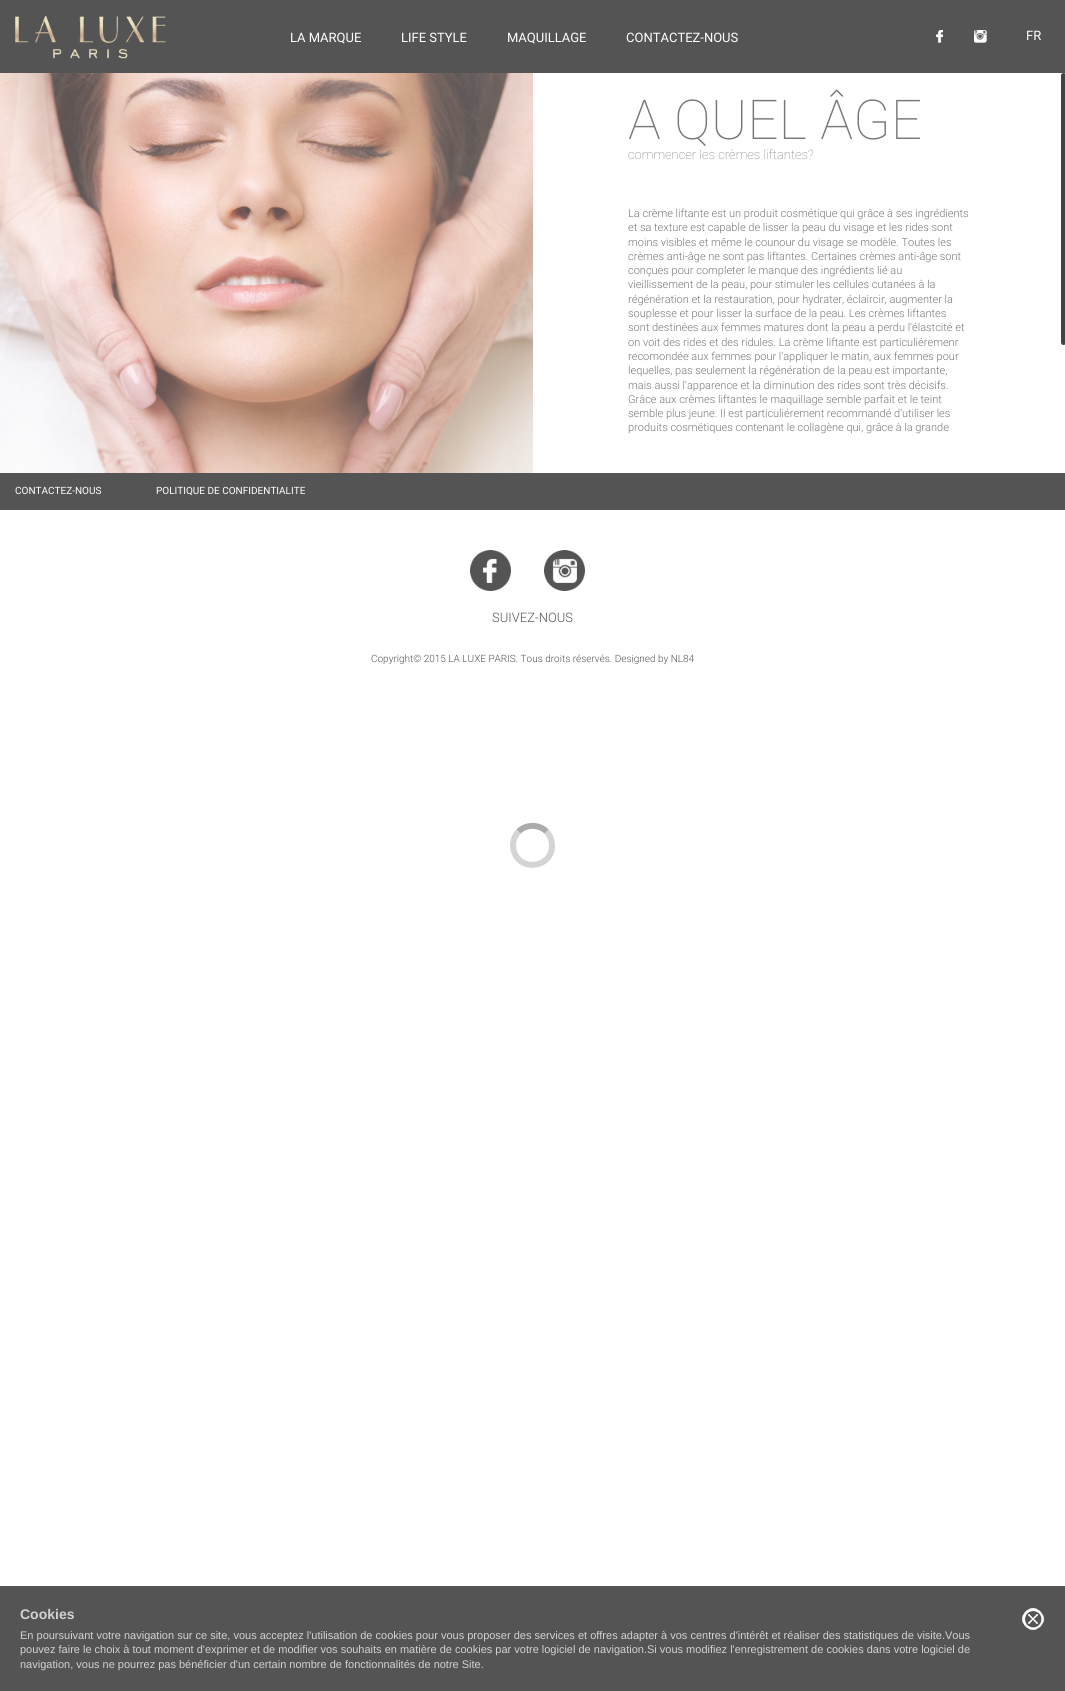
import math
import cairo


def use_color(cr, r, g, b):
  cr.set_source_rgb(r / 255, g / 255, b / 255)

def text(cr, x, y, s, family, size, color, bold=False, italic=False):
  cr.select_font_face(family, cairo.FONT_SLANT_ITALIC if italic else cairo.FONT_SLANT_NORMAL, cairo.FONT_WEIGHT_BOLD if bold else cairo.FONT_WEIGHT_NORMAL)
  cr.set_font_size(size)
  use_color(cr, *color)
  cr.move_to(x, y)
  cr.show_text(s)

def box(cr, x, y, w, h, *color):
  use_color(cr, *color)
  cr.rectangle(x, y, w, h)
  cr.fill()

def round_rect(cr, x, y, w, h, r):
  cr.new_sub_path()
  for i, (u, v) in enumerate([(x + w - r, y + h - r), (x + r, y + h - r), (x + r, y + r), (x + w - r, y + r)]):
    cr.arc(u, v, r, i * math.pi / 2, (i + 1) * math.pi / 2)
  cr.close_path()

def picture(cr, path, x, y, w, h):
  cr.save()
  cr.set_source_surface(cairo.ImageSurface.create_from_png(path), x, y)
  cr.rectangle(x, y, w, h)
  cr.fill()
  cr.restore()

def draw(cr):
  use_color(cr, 255, 255, 255)
  cr.paint()
  box(cr, 0, 0, 1065, 73, 84, 84, 84)
  picture(cr, "img_01.png", 15, 16, 151, 43)
  picture(cr, "img_02.png", 936, 30, 7, 13)
  picture(cr, "img_03.png", 974, 30, 13, 13)
  picture(cr, "img_04.png", 0, 73, 533, 400)
  box(cr, 0, 473, 1065, 37, 84, 84, 84)
  picture(cr, "img_05.png", 470, 550, 41, 41)
  picture(cr, "img_06.png", 544, 550, 41, 41)
  box(cr, 0, 1586, 1065, 105, 84, 84, 84)
  picture(cr, "img_07.png", 1022, 1608, 22, 22)
  use_color(cr, 67, 67, 67)
  round_rect(cr, 1061, 73, 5, 272, 2.5)
  cr.fill()
  cr.new_path()
  cr.move_to(518.5, 831.5)
  cr.curve_to(526, 824, 539, 824, 546.5, 831.5)
  use_color(cr, 171, 171, 171)
  cr.set_line_width(6)
  cr.stroke()
  cr.new_path()
  cr.move_to(546.5, 831.5)
  cr.curve_to(550, 835.5, 552, 840.5, 552, 845.5)
  cr.curve_to(552, 869, 518, 872, 513.5, 849.5)
  cr.curve_to(512, 843, 514, 836.5, 518.5, 831.5)
  cr.set_source_rgba(0.671, 0.671, 0.671, 0.5)
  cr.stroke()
  text(cr, 290, 42, "LA MARQUE", "Roboto", 13, (255, 255, 255))
  text(cr, 401, 42, "LIFE STYLE", "Roboto", 13, (255, 255, 255))
  text(cr, 507, 42, "MAQUILLAGE", "Roboto", 13, (255, 255, 255))
  text(cr, 626, 42, "CONTACTEZ-NOUS", "Roboto", 13, (255, 255, 255))
  text(cr, 1026, 40, "FR", "Roboto", 13, (255, 255, 255))
  text(cr, 628, 139, "A QUEL ÂGE", "Roboto Thin", 55, (120, 120, 120))
  text(cr, 628, 159, "commencer les crèmes liftantes?", "Roboto Thin", 13, (120, 120, 120))
  text(cr, 628, 217, "La crème liftante est un produit cosmétique qui grâce à ses ingrédients", "Roboto Light", 11, (120, 120, 120))
  text(cr, 628, 231, "et sa texture est capable de lisser la peau du visage et les rides sont", "Roboto Light", 11, (120, 120, 120))
  text(cr, 628, 246, "moins visibles et même le counour du visage se modèle. Toutes les", "Roboto Light", 11, (120, 120, 120))
  text(cr, 628, 260, "crèmes anti-âge ne sont pas liftantes. Certaines crèmes anti-âge sont", "Roboto Light", 11, (120, 120, 120))
  text(cr, 628, 274, "conçues pour completer le manque des ingrédients lié au", "Roboto Light", 11, (120, 120, 120))
  text(cr, 628, 288, "vieillissement de la peau, pour stimuler les cellules cutanées à la", "Roboto Light", 11, (120, 120, 120))
  text(cr, 628, 303, "régénération et la restauration, pour hydrater, éclaircir, augmenter la", "Roboto Light", 11, (120, 120, 120))
  text(cr, 628, 317, "souplesse et pour lisser la surface de la peau. Les crèmes liftantes", "Roboto Light", 11, (120, 120, 120))
  text(cr, 628, 331, "sont destinées aux femmes matures dont la peau a perdu l'élastcité et", "Roboto Light", 11, (120, 120, 120))
  text(cr, 628, 346, "on voit des rides et des ridules. La crème liftante est particuliéremenr", "Roboto Light", 11, (120, 120, 120))
  text(cr, 628, 360, "recomondée aux femmes pour l'appliquer le matin, aux femmes pour", "Roboto Light", 11, (120, 120, 120))
  text(cr, 628, 374, "lequelles, pas seulement la régénération de la peau est importante,", "Roboto Light", 11, (120, 120, 120))
  text(cr, 628, 389, "mais aussi l'apparence et la diminution des rides sont très décisifs.", "Roboto Light", 11, (120, 120, 120))
  text(cr, 628, 403, "Grâce aux crèmes liftantes le maquillage semble parfait et le teint", "Roboto Light", 11, (120, 120, 120))
  text(cr, 628, 417, "semble plus jeune. Il est particuliérement recommandé d'utiliser les", "Roboto Light", 11, (120, 120, 120))
  text(cr, 628, 431, "produits cosmétiques contenant le collagène qui, grâce à la grande", "Roboto Light", 11, (120, 120, 120))
  text(cr, 15, 494, "CONTACTEZ-NOUS", "Roboto", 10, (255, 255, 255))
  text(cr, 156, 494, "POLITIQUE DE CONFIDENTIALITE", "Roboto", 10, (255, 255, 255))
  text(cr, 492, 622, "SUIVEZ-NOUS", "Roboto Light", 13, (84, 84, 84))
  text(cr, 371, 662, "Copyright© 2015 LA LUXE PARIS. Tous droits réservés. Designed by NL84", "Roboto Light", 10, (84, 84, 84))
  text(cr, 20, 1619, "Cookies", "Liberation Sans", 14, (210, 210, 210), bold=True)
  text(cr, 20, 1639, "En poursuivant votre navigation sur ce site, vous acceptez l'utilisation de cookies pour vous proposer des services et offres adapter à vos centres d'intérêt et réaliser des statistiques de visite.Vous", "Liberation Sans", 11, (210, 210, 210))
  text(cr, 20, 1653, "pouvez faire le choix à tout moment d'exprimer et de modifier vos souhaits en matière de cookies par votre logiciel de navigation.Si vous modifiez l'enregistrement de cookies dans votre logiciel de", "Liberation Sans", 11, (210, 210, 210))
  text(cr, 20, 1668, "navigation, vous ne pourrez pas bénéficier d'un certain nombre de fonctionnalités de notre Site.", "Liberation Sans", 11, (210, 210, 210))


surface = cairo.ImageSurface(cairo.FORMAT_RGB24, 1065, 1691)
cr = cairo.Context(surface)
options = cairo.FontOptions()
options.set_hint_metrics(cairo.HINT_METRICS_OFF)
options.set_hint_style(cairo.HINT_STYLE_NONE)
cr.set_font_options(options)
cr.set_miter_limit(4)
draw(cr)
surface.write_to_png("out.png")
